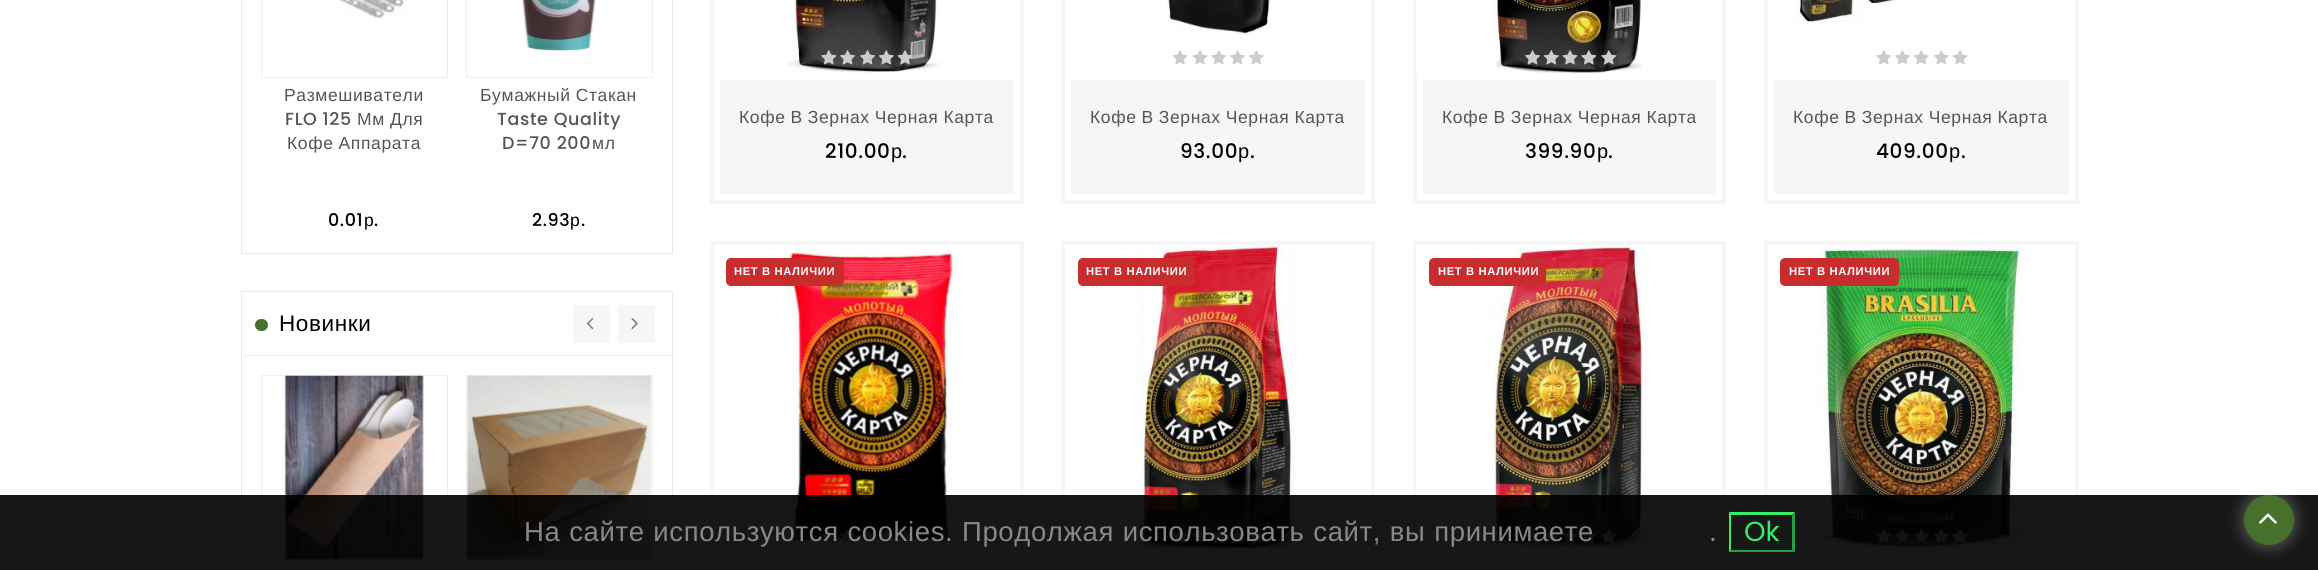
import math
import cairo


def use_color(cr, r, g, b):
  cr.set_source_rgb(r / 255, g / 255, b / 255)

def text(cr, x, y, s, family, size, color, bold=False, italic=False):
  cr.select_font_face(family, cairo.FONT_SLANT_ITALIC if italic else cairo.FONT_SLANT_NORMAL, cairo.FONT_WEIGHT_BOLD if bold else cairo.FONT_WEIGHT_NORMAL)
  cr.set_font_size(size)
  use_color(cr, *color)
  cr.move_to(x, y)
  cr.show_text(s)

def spaced_text(cr, x, y, s, letter, word):
  cr.move_to(x, y)
  for ch in s:
    cr.show_text(ch)
    cr.rel_move_to(letter + word * (ch == ' '), 0)

def box(cr, x, y, w, h, *color):
  use_color(cr, *color)
  cr.rectangle(x, y, w, h)
  cr.fill()

def round_rect(cr, x, y, w, h, r):
  cr.new_sub_path()
  for i, (u, v) in enumerate([(x + w - r, y + h - r), (x + r, y + h - r), (x + r, y + r), (x + w - r, y + r)]):
    cr.arc(u, v, r, i * math.pi / 2, (i + 1) * math.pi / 2)
  cr.close_path()

def shadow(cr, x, y, w, h, r, blur, alpha):
  cr.push_group_with_content(cairo.CONTENT_ALPHA)
  cr.set_operator(cairo.OPERATOR_SOURCE)
  for i in range(15, -16, -2):
    e = blur * i / 6
    if min(w, h) + 2 * e > 0:
      cr.set_source_rgba(0, 0, 0, alpha * math.erfc((i - 1) / 8.5) / 2)
      round_rect(cr, x - e, y - e, w + 2 * e, h + 2 * e, max(0, min(r + e + blur * .6, min(w, h) / 2 + e)))
      cr.fill()
  cr.mask(cr.pop_group())

def picture(cr, path, x, y, w, h):
  cr.save()
  cr.set_source_surface(cairo.ImageSurface.create_from_png(path), x, y)
  cr.rectangle(x, y, w, h)
  cr.fill()
  cr.restore()

def draw(cr):
  use_color(cr, 255, 255, 255)
  cr.paint()
  cr.rectangle(241.5, -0.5, 431, 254)
  use_color(cr, 233, 233, 233)
  cr.set_line_width(1)
  cr.stroke()
  cr.rectangle(261.5, -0.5, 186, 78)
  use_color(cr, 238, 238, 238)
  cr.stroke()
  picture(cr, "img_01.png", 339, 0, 71, 19)
  cr.rectangle(466.5, -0.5, 186, 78)
  cr.stroke()
  picture(cr, "img_02.png", 522, 0, 74, 51)
  cr.rectangle(241.5, 291.5, 431, 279)
  use_color(cr, 233, 233, 233)
  cr.stroke()
  box(cr, 573, 305, 37, 38, 246, 246, 246)
  picture(cr, "img_03.png", 586, 318, 8, 12)
  box(cr, 618, 305, 37, 38, 246, 246, 246)
  picture(cr, "img_04.png", 631, 318, 7, 12)
  cr.rectangle(261.5, 375.5, 186, 185)
  use_color(cr, 238, 238, 238)
  cr.stroke()
  picture(cr, "img_05.png", 263, 375, 182, 185)
  cr.rectangle(466.5, 375.5, 186, 185)
  cr.stroke()
  picture(cr, "img_06.png", 467, 375, 185, 185)
  box(cr, 243, 355, 428, 1, 238, 238, 238)
  use_color(cr, 70, 112, 44)
  round_rect(cr, 255, 319, 13, 12, 6)
  cr.fill()
  cr.rectangle(712, -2, 310, 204)
  use_color(cr, 246, 246, 246)
  cr.set_line_width(4)
  cr.stroke()
  picture(cr, "img_07.png", 786, 0, 157, 73)
  picture(cr, "img_08.png", 821, 50, 16, 15)
  picture(cr, "img_09.png", 840, 50, 15, 15)
  picture(cr, "img_10.png", 860, 50, 15, 15)
  picture(cr, "img_11.png", 878, 50, 16, 15)
  picture(cr, "img_12.png", 897, 50, 16, 15)
  box(cr, 720, 80, 294, 114, 246, 246, 246)
  cr.rectangle(1063, -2, 310, 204)
  cr.stroke()
  picture(cr, "img_13.png", 1166, 0, 104, 35)
  picture(cr, "img_14.png", 1172, 50, 16, 15)
  picture(cr, "img_14.png", 1192, 50, 16, 15)
  picture(cr, "img_15.png", 1211, 50, 16, 15)
  picture(cr, "img_16.png", 1230, 50, 15, 15)
  picture(cr, "img_17.png", 1248, 50, 16, 15)
  box(cr, 1071, 80, 294, 114, 246, 246, 246)
  cr.rectangle(1415, -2, 309, 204)
  cr.stroke()
  picture(cr, "img_18.png", 1416, 0, 226, 73)
  picture(cr, "img_19.png", 1525, 50, 15, 15)
  picture(cr, "img_20.png", 1543, 50, 16, 15)
  picture(cr, "img_21.png", 1562, 50, 16, 15)
  picture(cr, "img_22.png", 1581, 50, 16, 15)
  picture(cr, "img_23.png", 1601, 50, 16, 15)
  box(cr, 1423, 80, 293, 114, 246, 246, 246)
  cr.rectangle(1766, -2, 311, 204)
  cr.stroke()
  picture(cr, "img_24.png", 1794, 0, 106, 24)
  picture(cr, "img_15.png", 1876, 50, 16, 15)
  picture(cr, "img_16.png", 1895, 50, 15, 15)
  picture(cr, "img_17.png", 1913, 50, 16, 15)
  picture(cr, "img_17.png", 1933, 50, 16, 15)
  picture(cr, "img_14.png", 1952, 50, 16, 15)
  box(cr, 1774, 80, 295, 114, 246, 246, 246)
  cr.rectangle(712, 243, 310, 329)
  cr.stroke()
  picture(cr, "img_25.png", 787, 249, 167, 293)
  use_color(cr, 201, 44, 44)
  round_rect(cr, 726, 258, 118, 28, 5)
  cr.fill()
  picture(cr, "img_26.png", 821, 528, 16, 16)
  picture(cr, "img_27.png", 840, 528, 15, 16)
  picture(cr, "img_28.png", 860, 528, 15, 16)
  picture(cr, "img_29.png", 878, 528, 16, 16)
  picture(cr, "img_30.png", 897, 528, 16, 16)
  box(cr, 720, 558, 294, 12, 246, 246, 246)
  cr.rectangle(1063, 243, 310, 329)
  cr.stroke()
  picture(cr, "img_31.png", 1139, 245, 157, 305)
  use_color(cr, 201, 44, 44)
  round_rect(cr, 1078, 258, 117, 28, 5)
  cr.fill()
  picture(cr, "img_32.png", 1172, 528, 16, 16)
  picture(cr, "img_33.png", 1192, 528, 16, 16)
  picture(cr, "img_34.png", 1211, 528, 16, 16)
  picture(cr, "img_35.png", 1230, 528, 15, 16)
  picture(cr, "img_36.png", 1248, 528, 16, 16)
  box(cr, 1071, 558, 294, 12, 246, 246, 246)
  cr.rectangle(1415, 243, 309, 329)
  cr.stroke()
  picture(cr, "img_37.png", 1416, 245, 236, 305)
  use_color(cr, 201, 44, 44)
  round_rect(cr, 1429, 258, 117, 28, 5)
  cr.fill()
  picture(cr, "img_38.png", 1525, 528, 15, 15)
  picture(cr, "img_39.png", 1543, 528, 16, 16)
  picture(cr, "img_40.png", 1562, 528, 16, 16)
  picture(cr, "img_41.png", 1581, 528, 16, 16)
  picture(cr, "img_42.png", 1601, 528, 16, 16)
  box(cr, 1423, 558, 293, 12, 246, 246, 246)
  cr.rectangle(1766, 243, 311, 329)
  cr.stroke()
  picture(cr, "img_43.png", 1819, 245, 205, 303)
  use_color(cr, 201, 44, 44)
  round_rect(cr, 1780, 258, 119, 28, 5)
  cr.fill()
  picture(cr, "img_44.png", 1876, 528, 16, 16)
  picture(cr, "img_45.png", 1895, 528, 15, 16)
  picture(cr, "img_46.png", 1913, 528, 16, 16)
  picture(cr, "img_47.png", 1933, 528, 16, 16)
  picture(cr, "img_48.png", 1952, 528, 16, 16)
  box(cr, 1774, 558, 295, 12, 246, 246, 246)
  cr.set_source_rgba(0, 0, 0, 0.7)
  cr.rectangle(0, 495, 2318, 75)
  cr.fill()
  cr.rectangle(0, 495, 2318, 75)
  cr.fill()
  use_color(cr, 53, 240, 103)
  cr.new_path()
  cr.move_to(1729, 512)
  cr.line_to(1795, 512)
  cr.line_to(1792, 515)
  cr.line_to(1731, 515)
  cr.close_path()
  cr.fill()
  use_color(cr, 35, 160, 69)
  cr.new_path()
  cr.move_to(1795, 512)
  cr.line_to(1795, 552)
  cr.line_to(1792, 550)
  cr.line_to(1792, 515)
  cr.close_path()
  cr.fill()
  cr.new_path()
  cr.move_to(1795, 552)
  cr.line_to(1729, 552)
  cr.line_to(1731, 550)
  cr.line_to(1792, 550)
  cr.close_path()
  cr.fill()
  use_color(cr, 53, 240, 103)
  cr.new_path()
  cr.move_to(1729, 552)
  cr.line_to(1729, 512)
  cr.line_to(1731, 515)
  cr.line_to(1731, 550)
  cr.close_path()
  cr.fill()
  use_color(cr, 255, 255, 255)
  shadow(cr, 2239, 490, 60, 60, 30, 6, 0.2)
  use_color(cr, 70, 112, 44)
  cr.arc(2269, 520, 25, 0, 2 * math.pi)
  cr.fill()
  picture(cr, "img_49.png", 2258, 513, 19, 11)
  cr.select_font_face("Liberation Sans")
  cr.set_font_size(17.5)
  use_color(cr, 85, 85, 85)
  spaced_text(cr, 284, 101, "Размешиватели", 0.62, 0)
  cr.select_font_face("Poppins Medium")
  spaced_text(cr, 285, 125, "FLO 125", 0.62, 0)
  cr.select_font_face("Liberation Sans")
  spaced_text(cr, 357, 125, "Мм", 0.62, 0)
  spaced_text(cr, 390, 125, "Для", 0.62, 0)
  spaced_text(cr, 287, 149, "Кофе Аппарата", 0.62, -0.5)
  cr.select_font_face("Poppins Medium")
  use_color(cr, 0, 0, 0)
  spaced_text(cr, 328, 226, "0.01", 0.62, 0)
  cr.select_font_face("Liberation Sans")
  spaced_text(cr, 364, 226, "р", 0.62, 0)
  cr.select_font_face("Poppins Medium")
  spaced_text(cr, 374, 226, ".", 0.62, 0)
  cr.select_font_face("Liberation Sans")
  use_color(cr, 85, 85, 85)
  spaced_text(cr, 480, 101, "Бумажный Стакан", 0.62, -0.5)
  cr.select_font_face("Poppins Medium")
  spaced_text(cr, 497, 125, "Taste Quality", 0.62, 0)
  spaced_text(cr, 502, 149, "D=70 200", 0.62, 0)
  cr.select_font_face("Liberation Sans")
  spaced_text(cr, 592, 149, "мл", 0.62, 0)
  cr.select_font_face("Poppins Medium")
  use_color(cr, 0, 0, 0)
  spaced_text(cr, 532, 226, "2.93", 0.62, 0)
  cr.select_font_face("Liberation Sans")
  spaced_text(cr, 570, 226, "р", 0.62, 0)
  cr.select_font_face("Poppins Medium")
  spaced_text(cr, 581, 226, ".", 0.62, 0)
  cr.select_font_face("Liberation Sans")
  cr.set_font_size(22.5)
  spaced_text(cr, 279, 331, "Новинки", 0.62, 0)
  cr.set_font_size(17.5)
  use_color(cr, 85, 85, 85)
  spaced_text(cr, 739, 123, "Кофе В Зернах Черная Карта", 0.62, -0.5)
  cr.select_font_face("Poppins Medium")
  cr.set_font_size(20)
  use_color(cr, 0, 0, 0)
  spaced_text(cr, 825, 158, "210.00", 0.62, 0)
  cr.select_font_face("Liberation Sans")
  spaced_text(cr, 891, 158, "р", 0.62, 0)
  cr.select_font_face("Poppins Medium")
  spaced_text(cr, 902, 158, ".", 0.62, 0)
  cr.select_font_face("Liberation Sans")
  cr.set_font_size(17.5)
  use_color(cr, 85, 85, 85)
  spaced_text(cr, 1090, 123, "Кофе В Зернах Черная Карта", 0.62, -0.5)
  cr.select_font_face("Poppins Medium")
  cr.set_font_size(20)
  use_color(cr, 0, 0, 0)
  spaced_text(cr, 1180, 158, "93.00", 0.62, 0)
  cr.select_font_face("Liberation Sans")
  spaced_text(cr, 1238, 158, "р", 0.62, 0)
  cr.select_font_face("Poppins Medium")
  spaced_text(cr, 1250, 158, ".", 0.62, 0)
  cr.select_font_face("Liberation Sans")
  cr.set_font_size(17.5)
  use_color(cr, 85, 85, 85)
  spaced_text(cr, 1442, 123, "Кофе В Зернах Черная Карта", 0.62, -0.5)
  cr.select_font_face("Poppins Medium")
  cr.set_font_size(20)
  use_color(cr, 0, 0, 0)
  spaced_text(cr, 1525, 158, "399.90", 0.62, 0)
  cr.select_font_face("Liberation Sans")
  spaced_text(cr, 1597, 158, "р", 0.62, 0)
  cr.select_font_face("Poppins Medium")
  spaced_text(cr, 1608, 158, ".", 0.62, 0)
  cr.select_font_face("Liberation Sans")
  cr.set_font_size(17.5)
  use_color(cr, 85, 85, 85)
  spaced_text(cr, 1793, 123, "Кофе В Зернах Черная Карта", 0.62, -0.5)
  cr.select_font_face("Poppins Medium")
  cr.set_font_size(20)
  use_color(cr, 0, 0, 0)
  spaced_text(cr, 1876, 158, "409.00", 0.62, 0)
  cr.select_font_face("Liberation Sans")
  spaced_text(cr, 1949, 158, "р", 0.62, 0)
  cr.select_font_face("Poppins Medium")
  spaced_text(cr, 1961, 158, ".", 0.62, 0)
  cr.select_font_face("Liberation Sans", cairo.FONT_SLANT_NORMAL, cairo.FONT_WEIGHT_BOLD)
  cr.set_font_size(11.25)
  use_color(cr, 255, 255, 255)
  spaced_text(cr, 734, 275, "НЕТ В НАЛИЧИИ", 0.62, 0)
  spaced_text(cr, 1086, 275, "НЕТ В НАЛИЧИИ", 0.62, 0)
  spaced_text(cr, 1438, 275, "НЕТ В НАЛИЧИИ", 0.62, 0)
  spaced_text(cr, 1789, 275, "НЕТ В НАЛИЧИИ", 0.62, 0)
  cr.select_font_face("Liberation Sans")
  cr.set_font_size(27.5)
  use_color(cr, 136, 136, 136)
  spaced_text(cr, 524, 541, "На сайте используются cookies. Продолжая использовать сайт, вы принимаете", 0.62, 0.5)
  cr.select_font_face("Poppins")
  spaced_text(cr, 1710, 541, ".", 0.62, 0)
  text(cr, 1744, 541, "Ok", "Poppins", 27.5, (53, 240, 103))


surface = cairo.ImageSurface(cairo.FORMAT_RGB24, 2318, 570)
cr = cairo.Context(surface)
options = cairo.FontOptions()
options.set_hint_metrics(cairo.HINT_METRICS_OFF)
options.set_hint_style(cairo.HINT_STYLE_NONE)
cr.set_font_options(options)
cr.set_miter_limit(4)
draw(cr)
surface.write_to_png("out.png")
